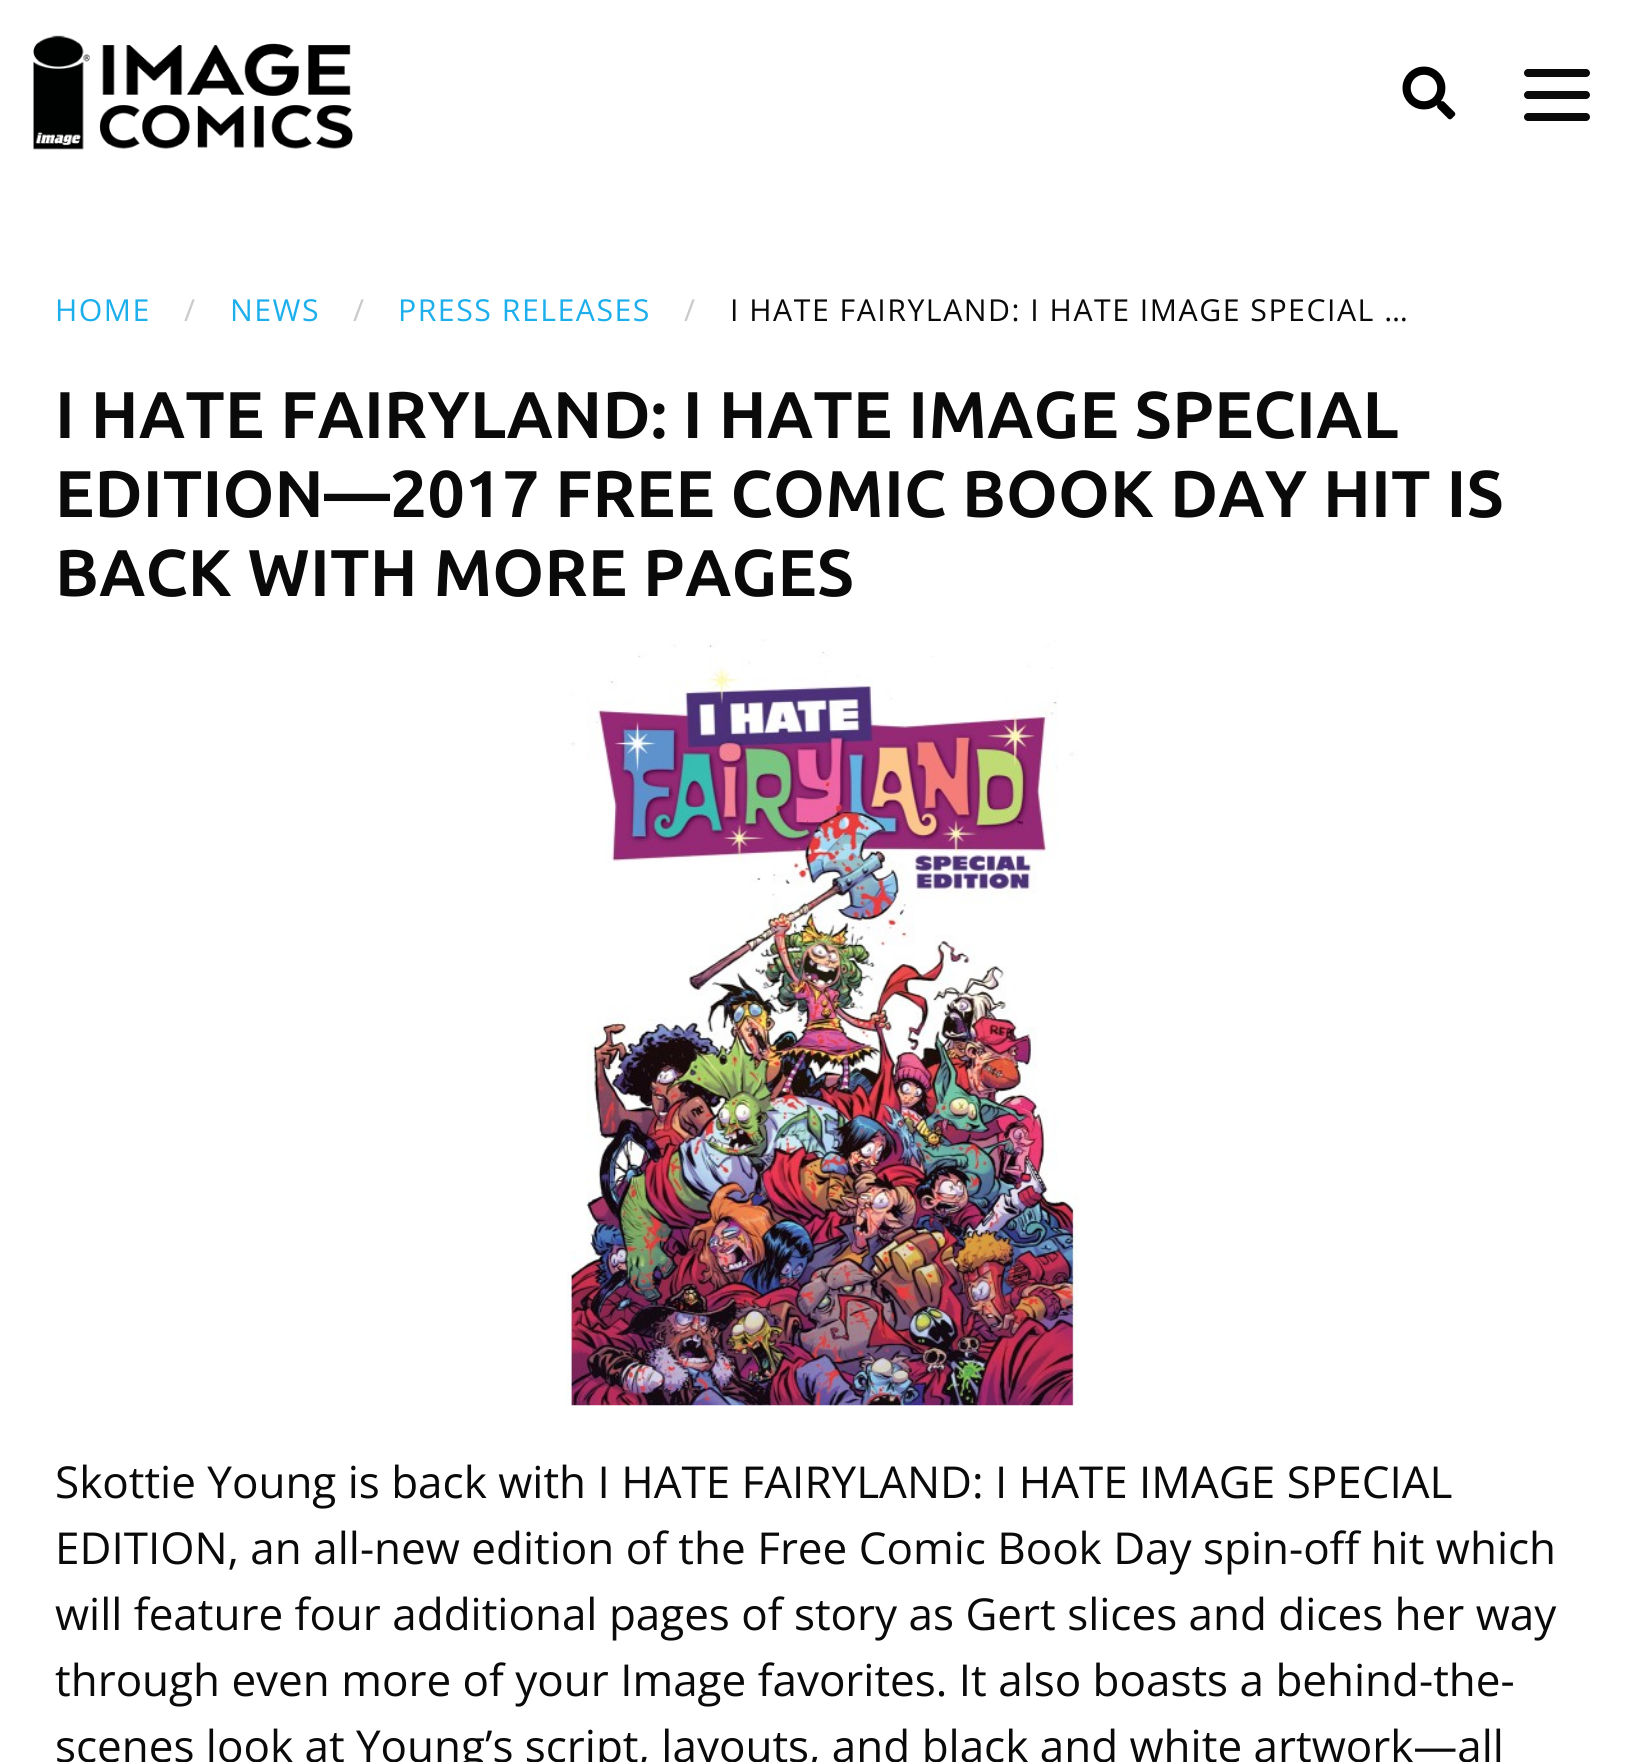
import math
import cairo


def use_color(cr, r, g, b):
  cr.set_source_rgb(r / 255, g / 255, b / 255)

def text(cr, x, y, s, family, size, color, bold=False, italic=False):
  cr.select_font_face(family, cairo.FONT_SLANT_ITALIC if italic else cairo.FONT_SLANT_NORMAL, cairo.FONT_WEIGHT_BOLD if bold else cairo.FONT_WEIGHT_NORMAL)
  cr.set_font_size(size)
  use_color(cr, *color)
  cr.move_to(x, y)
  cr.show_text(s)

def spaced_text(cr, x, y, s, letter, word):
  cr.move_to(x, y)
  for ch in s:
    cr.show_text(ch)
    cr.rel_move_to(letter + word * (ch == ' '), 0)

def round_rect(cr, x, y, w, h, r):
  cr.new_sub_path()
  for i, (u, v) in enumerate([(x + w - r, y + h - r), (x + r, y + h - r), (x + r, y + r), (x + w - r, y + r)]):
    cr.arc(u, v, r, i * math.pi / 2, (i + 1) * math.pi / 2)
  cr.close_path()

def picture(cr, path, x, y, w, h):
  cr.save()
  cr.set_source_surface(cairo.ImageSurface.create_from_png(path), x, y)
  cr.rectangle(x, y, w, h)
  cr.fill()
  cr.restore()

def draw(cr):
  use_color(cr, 255, 255, 255)
  cr.paint()
  picture(cr, "img_01.png", 33, 35, 320, 115)
  picture(cr, "img_02.png", 1402, 66, 54, 54)
  use_color(cr, 10, 10, 10)
  round_rect(cr, 1524, 69, 66, 8, 4)
  cr.fill()
  round_rect(cr, 1524, 91, 66, 8, 4)
  cr.fill()
  round_rect(cr, 1524, 113, 66, 8, 4)
  cr.fill()
  picture(cr, "img_03.png", 566, 639, 513, 767)
  cr.select_font_face("Open Sans")
  cr.set_font_size(30.25)
  use_color(cr, 29, 175, 236)
  spaced_text(cr, 55, 321, "HOME", 1.5, 0)
  use_color(cr, 202, 202, 202)
  spaced_text(cr, 184, 321, "/", 1.5, 0)
  use_color(cr, 29, 175, 236)
  spaced_text(cr, 230, 321, "NEWS", 1.5, 0)
  use_color(cr, 202, 202, 202)
  spaced_text(cr, 353, 321, "/", 1.5, 0)
  use_color(cr, 29, 175, 236)
  spaced_text(cr, 398, 321, "PRESS RELEASES", 1.5, 0)
  use_color(cr, 202, 202, 202)
  spaced_text(cr, 684, 321, "/", 1.5, 0)
  use_color(cr, 10, 10, 10)
  spaced_text(cr, 730, 321, "I HATE FAIRYLAND: I HATE IMAGE SPECIAL …", 1.5, 0)
  cr.select_font_face("Ubuntu", cairo.FONT_SLANT_NORMAL, cairo.FONT_WEIGHT_BOLD)
  cr.set_font_size(66)
  spaced_text(cr, 55, 438, "I HATE FAIRYLAND: I HATE IMAGE SPECIAL", 0.15, 0)
  spaced_text(cr, 55, 517, "EDITION—2017 FREE COMIC BOOK DAY HIT IS", 0.15, 0)
  spaced_text(cr, 55, 596, "BACK WITH MORE PAGES", 0.15, 0)
  text(cr, 55, 1498, "Skottie Young is back with I HATE FAIRYLAND: I HATE IMAGE SPECIAL", "Open Sans", 44, (10, 10, 10))
  text(cr, 55, 1564, "EDITION, an all-new edition of the Free Comic Book Day spin-off hit which", "Open Sans", 44, (10, 10, 10))
  text(cr, 55, 1630, "will feature four additional pages of story as Gert slices and dices her way", "Open Sans", 44, (10, 10, 10))
  text(cr, 55, 1696, "through even more of your Image favorites. It also boasts a behind-the-", "Open Sans", 44, (10, 10, 10))
  text(cr, 55, 1762, "scenes look at Young’s script, layouts, and black and white artwork—all", "Open Sans", 44, (10, 10, 10))


surface = cairo.ImageSurface(cairo.FORMAT_RGB24, 1642, 1762)
cr = cairo.Context(surface)
options = cairo.FontOptions()
options.set_hint_metrics(cairo.HINT_METRICS_OFF)
options.set_hint_style(cairo.HINT_STYLE_NONE)
cr.set_font_options(options)
cr.set_miter_limit(4)
draw(cr)
surface.write_to_png("out.png")
